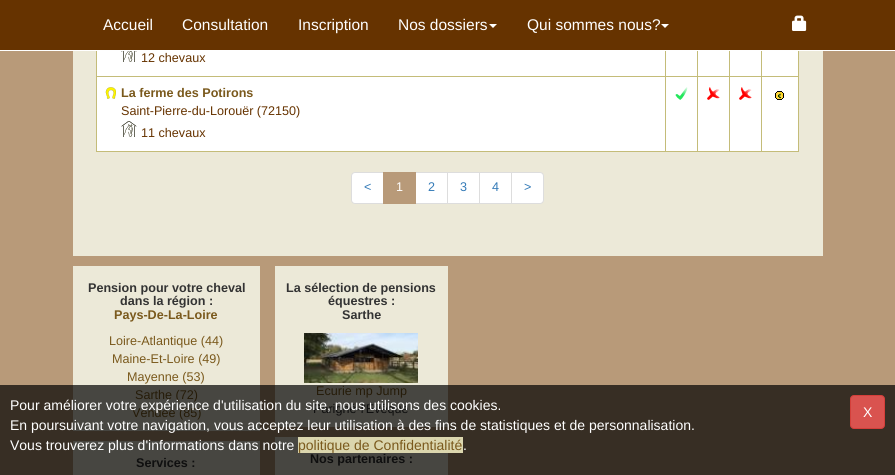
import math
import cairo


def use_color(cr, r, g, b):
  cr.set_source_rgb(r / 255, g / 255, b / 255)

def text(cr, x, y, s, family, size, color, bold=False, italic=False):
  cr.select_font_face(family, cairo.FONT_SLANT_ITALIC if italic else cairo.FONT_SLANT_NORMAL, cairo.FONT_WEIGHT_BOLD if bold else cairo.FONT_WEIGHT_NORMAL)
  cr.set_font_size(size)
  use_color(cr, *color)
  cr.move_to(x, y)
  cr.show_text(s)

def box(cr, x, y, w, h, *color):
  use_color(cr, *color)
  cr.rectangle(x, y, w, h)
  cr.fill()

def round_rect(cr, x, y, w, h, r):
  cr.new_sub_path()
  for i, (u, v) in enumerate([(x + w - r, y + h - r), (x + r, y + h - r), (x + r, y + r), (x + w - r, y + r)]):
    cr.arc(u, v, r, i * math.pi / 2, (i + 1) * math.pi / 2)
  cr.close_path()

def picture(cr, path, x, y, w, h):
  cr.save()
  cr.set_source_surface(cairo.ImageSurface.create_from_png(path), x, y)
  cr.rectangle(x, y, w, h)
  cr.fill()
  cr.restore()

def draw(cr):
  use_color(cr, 184, 154, 121)
  cr.paint()
  box(cr, 0, 385, 895, 90, 55, 46, 36)
  box(cr, 0, 0, 895, 50, 102, 51, 0)
  box(cr, 0, 50, 895, 1, 255, 255, 255)
  cr.new_path()
  cr.move_to(489, 24)
  cr.line_to(497, 24)
  cr.line_to(493, 28)
  cr.close_path()
  cr.fill()
  cr.new_path()
  cr.move_to(661, 24)
  cr.line_to(669, 24)
  cr.line_to(665, 28)
  cr.close_path()
  cr.fill()
  picture(cr, "img_01.png", 792, 15, 15, 16)
  box(cr, 73, 51, 750, 205, 236, 233, 216)
  box(cr, 97, 51, 701, 100, 255, 255, 255)
  box(cr, 798, 51, 1, 101, 196, 188, 121)
  box(cr, 96, 151, 703, 1, 196, 188, 121)
  box(cr, 96, 51, 1, 101, 196, 188, 121)
  picture(cr, "img_02.png", 121, 51, 16, 11)
  box(cr, 96, 76, 703, 1, 196, 188, 121)
  picture(cr, "img_03.png", 105, 87, 11, 12)
  picture(cr, "img_04.png", 121, 121, 16, 16)
  box(cr, 665, 51, 1, 101, 196, 188, 121)
  picture(cr, "img_05.png", 675, 87, 13, 13)
  box(cr, 697, 51, 1, 101, 196, 188, 121)
  picture(cr, "img_06.png", 707, 87, 13, 13)
  box(cr, 729, 51, 1, 101, 196, 188, 121)
  picture(cr, "img_06.png", 739, 87, 13, 13)
  box(cr, 761, 51, 1, 101, 196, 188, 121)
  picture(cr, "img_07.png", 775, 91, 9, 9)
  use_color(cr, 255, 255, 255)
  cr.new_path()
  cr.move_to(355, 172.5)
  cr.line_to(383.5, 172.5)
  cr.line_to(383.5, 203.5)
  cr.line_to(355, 203.5)
  cr.curve_to(353, 203.5, 351.5, 202, 351.5, 200)
  cr.line_to(351.5, 176)
  cr.curve_to(351.5, 174, 353, 172.5, 355, 172.5)
  cr.close_path()
  cr.fill_preserve()
  use_color(cr, 221, 221, 221)
  cr.set_line_width(1)
  cr.stroke()
  use_color(cr, 255, 255, 255)
  cr.rectangle(415.5, 172.5, 32, 31)
  cr.fill_preserve()
  use_color(cr, 221, 221, 221)
  cr.stroke()
  box(cr, 383, 172, 33, 32, 184, 154, 121)
  use_color(cr, 255, 255, 255)
  cr.rectangle(447.5, 172.5, 32, 31)
  cr.fill_preserve()
  use_color(cr, 221, 221, 221)
  cr.stroke()
  use_color(cr, 255, 255, 255)
  cr.rectangle(479.5, 172.5, 32, 31)
  cr.fill_preserve()
  use_color(cr, 221, 221, 221)
  cr.stroke()
  use_color(cr, 255, 255, 255)
  cr.new_path()
  cr.move_to(511.5, 172.5)
  cr.line_to(540, 172.5)
  cr.curve_to(542, 172.5, 543.5, 174, 543.5, 176)
  cr.line_to(543.5, 200)
  cr.curve_to(543.5, 202, 542, 203.5, 540, 203.5)
  cr.line_to(511.5, 203.5)
  cr.close_path()
  cr.fill_preserve()
  use_color(cr, 221, 221, 221)
  cr.stroke()
  box(cr, 73, 266, 187, 119, 236, 233, 216)
  box(cr, 73, 385, 187, 46, 71, 70, 65)
  box(cr, 73, 441, 187, 34, 71, 70, 65)
  box(cr, 275, 266, 173, 119, 236, 233, 216)
  box(cr, 275, 385, 173, 42, 71, 70, 65)
  picture(cr, "img_08.png", 304, 333, 114, 50)
  box(cr, 275, 437, 173, 38, 71, 70, 65)
  box(cr, 298, 437, 165, 16, 219, 214, 174)
  use_color(cr, 217, 83, 79)
  round_rect(cr, 850.5, 395.5, 34, 33, 3.5)
  cr.fill_preserve()
  use_color(cr, 212, 63, 58)
  cr.stroke()
  text(cr, 103, 30, "Accueil", "Liberation Sans", 15.5, (255, 255, 255))
  text(cr, 182, 30, "Consultation", "Liberation Sans", 15.5, (255, 255, 255))
  text(cr, 298, 30, "Inscription", "Liberation Sans", 15.5, (255, 255, 255))
  text(cr, 398, 30, "Nos dossiers", "Liberation Sans", 15.5, (255, 255, 255))
  text(cr, 527, 30, "Qui sommes nous?", "Liberation Sans", 15.5, (255, 255, 255))
  text(cr, 141, 62, "12 chevaux", "Liberation Sans", 12.6, (102, 51, 0))
  text(cr, 121, 97, "La ferme des Potirons", "Liberation Sans", 12.6, (122, 89, 28), bold=True)
  text(cr, 121, 115, "Saint-Pierre-du-Lorouër (72150)", "Liberation Sans", 12.6, (102, 51, 0))
  text(cr, 141, 137, "11 chevaux", "Liberation Sans", 12.6, (102, 51, 0))
  text(cr, 364, 191, "<", "Liberation Sans", 12.6, (51, 122, 183))
  text(cr, 396, 191, "1", "Liberation Sans", 12.6, (255, 255, 255))
  text(cr, 428, 191, "2", "Liberation Sans", 12.6, (51, 122, 183))
  text(cr, 460, 191, "3", "Liberation Sans", 12.6, (51, 122, 183))
  text(cr, 492, 191, "4", "Liberation Sans", 12.6, (51, 122, 183))
  text(cr, 524, 191, ">", "Liberation Sans", 12.6, (51, 122, 183))
  text(cr, 88, 292, "Pension pour votre cheval", "Liberation Sans", 12.6, (51, 51, 51), bold=True)
  text(cr, 120, 305, "dans la région :", "Liberation Sans", 12.6, (51, 51, 51), bold=True)
  text(cr, 114, 319, "Pays-De-La-Loire", "Liberation Sans", 12.6, (122, 89, 28), bold=True)
  text(cr, 109, 345, "Loire-Atlantique (44)", "Liberation Sans", 12.6, (122, 89, 28))
  text(cr, 112, 363, "Maine-Et-Loire (49)", "Liberation Sans", 12.6, (122, 89, 28))
  text(cr, 127, 381, "Mayenne (53)", "Liberation Sans", 12.6, (122, 89, 28))
  text(cr, 135, 399, "Sarthe (72)", "Liberation Sans", 12.6, (37, 27, 8))
  text(cr, 132, 417, "Vendee (85)", "Liberation Sans", 12.6, (37, 27, 8))
  text(cr, 136, 467, "Services :", "Liberation Sans", 12.6, (15, 15, 15), bold=True)
  text(cr, 286, 292, "La sélection de pensions", "Liberation Sans", 12.6, (51, 51, 51), bold=True)
  text(cr, 328, 305, "équestres :", "Liberation Sans", 12.6, (51, 51, 51), bold=True)
  text(cr, 342, 319, "Sarthe", "Liberation Sans", 12.6, (51, 51, 51), bold=True)
  text(cr, 316, 395, "Ecurie mp Jump", "Liberation Sans", 12.6, (37, 27, 8))
  text(cr, 313, 413, "Parigné-l'Évêque", "Liberation Sans", 12.6, (15, 15, 15))
  text(cr, 310, 463, "Nos partenaires :", "Liberation Sans", 12.6, (15, 15, 15), bold=True)
  text(cr, 10, 410, "Pour améliorer votre expérience d'utilisation du site, nous utilisons des cookies.", "Liberation Sans", 14, (255, 255, 255))
  text(cr, 10, 430, "En poursuivant votre navigation, vous acceptez leur utilisation à des fins de statistiques et de personnalisation.", "Liberation Sans", 14, (255, 255, 255))
  text(cr, 10, 450, "Vous trouverez plus d'informations dans notre", "Liberation Sans", 14, (255, 255, 255))
  text(cr, 298, 450, "politique de Confidentialité", "Liberation Sans", 14, (122, 89, 28))
  text(cr, 463, 450, ".", "Liberation Sans", 14, (255, 255, 255))
  text(cr, 863, 417, "X", "Liberation Sans", 14, (255, 255, 255))


surface = cairo.ImageSurface(cairo.FORMAT_RGB24, 895, 475)
cr = cairo.Context(surface)
options = cairo.FontOptions()
options.set_hint_metrics(cairo.HINT_METRICS_OFF)
options.set_hint_style(cairo.HINT_STYLE_NONE)
cr.set_font_options(options)
cr.set_miter_limit(4)
draw(cr)
surface.write_to_png("out.png")
